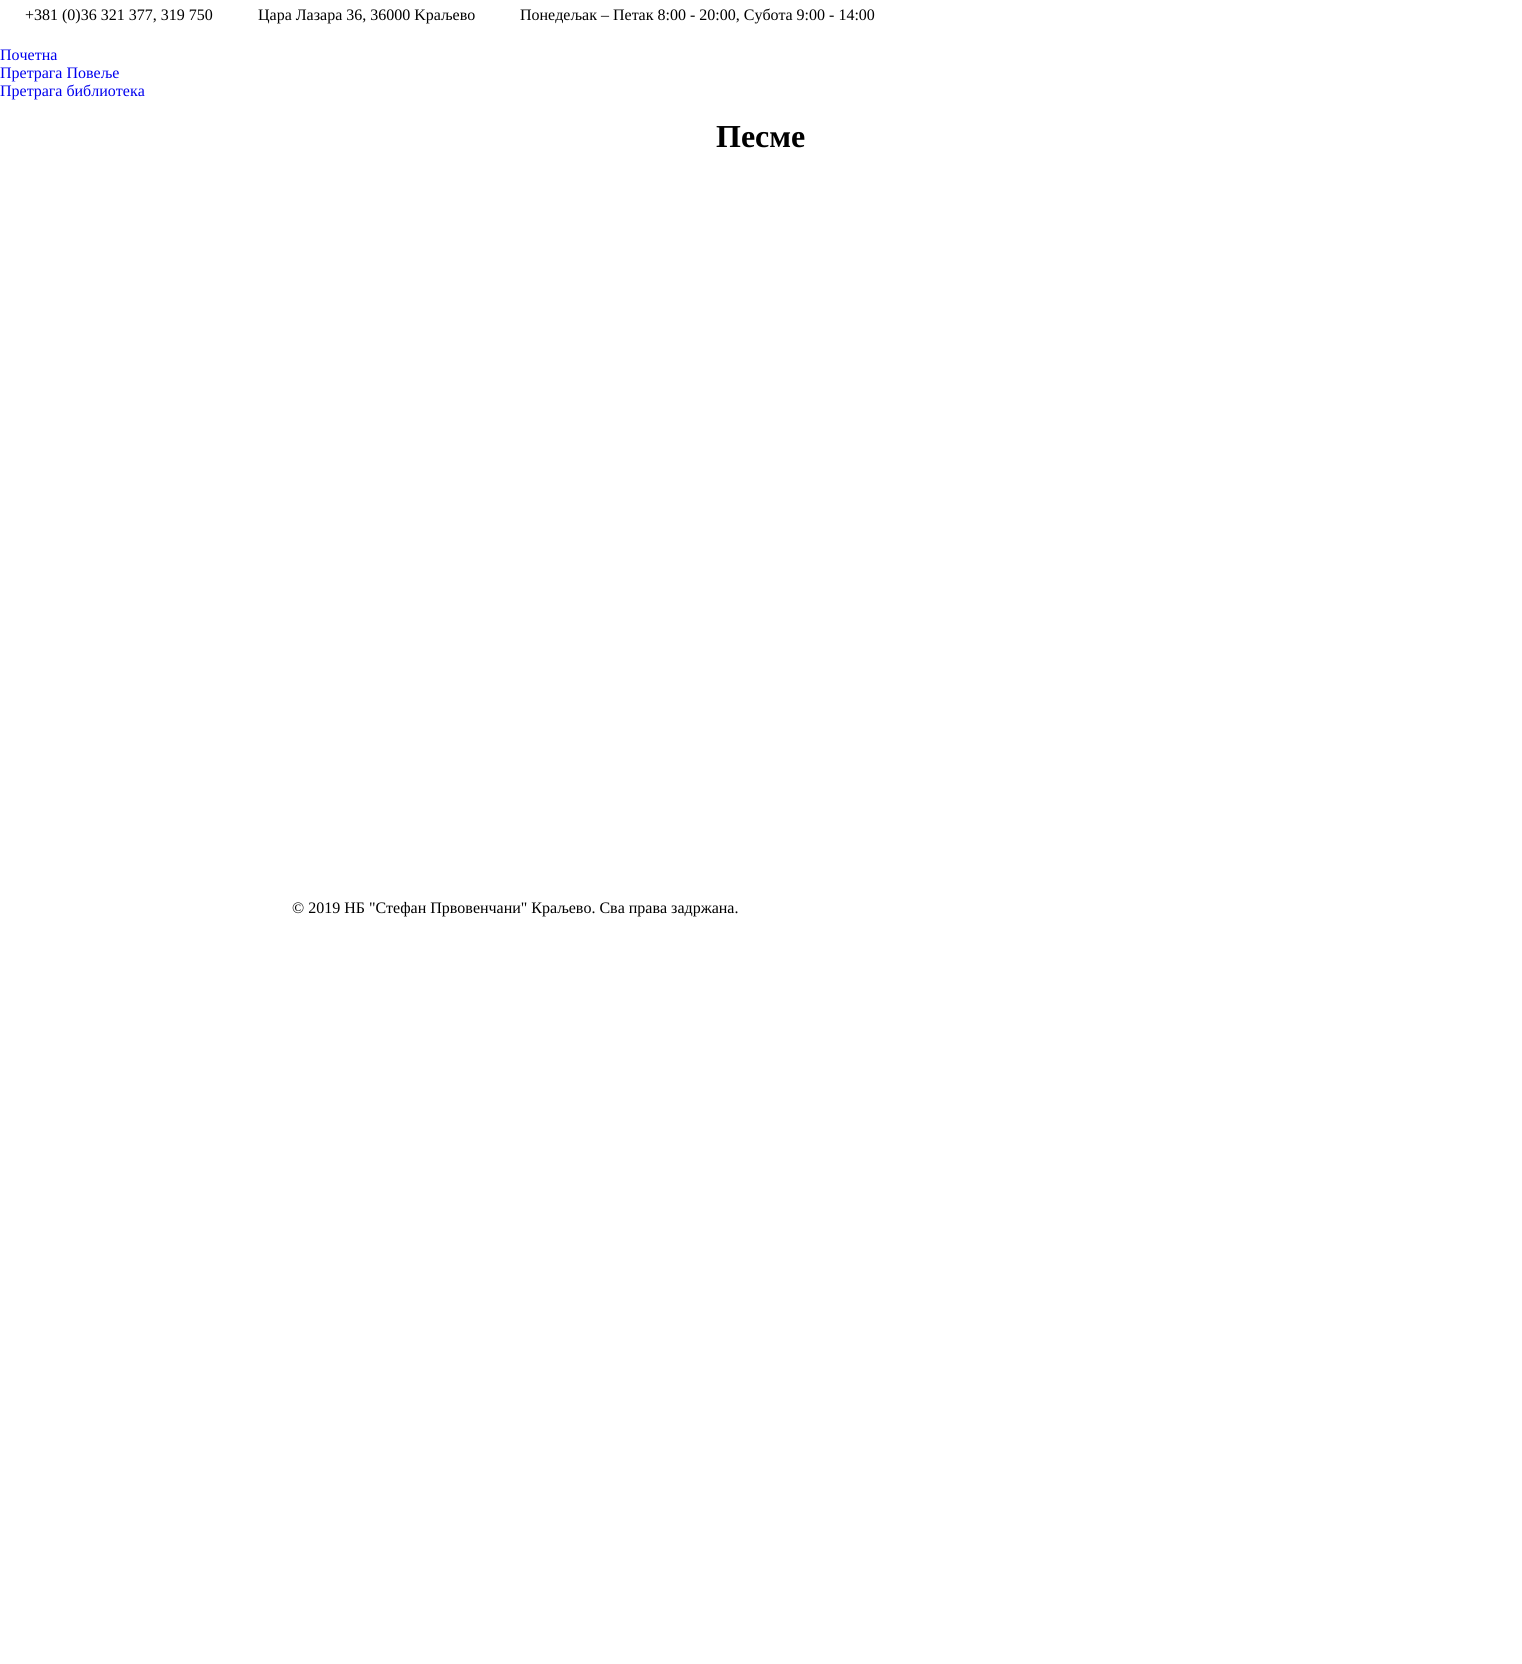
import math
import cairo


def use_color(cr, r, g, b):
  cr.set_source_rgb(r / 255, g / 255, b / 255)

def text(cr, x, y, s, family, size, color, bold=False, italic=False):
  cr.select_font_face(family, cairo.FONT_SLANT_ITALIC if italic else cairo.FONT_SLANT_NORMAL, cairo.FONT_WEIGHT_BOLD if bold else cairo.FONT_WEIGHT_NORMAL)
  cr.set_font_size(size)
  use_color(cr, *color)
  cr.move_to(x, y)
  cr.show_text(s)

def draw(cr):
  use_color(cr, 255, 255, 255)
  cr.paint()
  text(cr, 25, 20, "+381 (0)36 321 377, 319 750", "Liberation Serif", 16, (0, 0, 0))
  text(cr, 258, 20, "Цара Лазара 36, 36000 Kраљево", "Liberation Serif", 16, (0, 0, 0))
  text(cr, 520, 20, "Понедељак – Петак 8:00 - 20:00, Субота 9:00 - 14:00", "Liberation Serif", 16, (0, 0, 0))
  text(cr, 0, 60, "Почетна", "Liberation Serif", 16, (0, 0, 238))
  text(cr, 0, 78, "Претрага Повеље", "Liberation Serif", 16, (0, 0, 238))
  text(cr, 0, 96, "Претрага библиотека", "Liberation Serif", 16, (0, 0, 238))
  text(cr, 716, 147, "Песме", "Liberation Serif", 32, (0, 0, 0), bold=True)
  text(cr, 292, 913, "© 2019 НБ \"Стефан Првовенчани\" Краљево. Сва права задржана.", "Liberation Serif", 16, (0, 0, 0))


surface = cairo.ImageSurface(cairo.FORMAT_RGB24, 1522, 1664)
cr = cairo.Context(surface)
options = cairo.FontOptions()
options.set_hint_metrics(cairo.HINT_METRICS_OFF)
options.set_hint_style(cairo.HINT_STYLE_NONE)
cr.set_font_options(options)
cr.set_miter_limit(4)
draw(cr)
surface.write_to_png("out.png")
